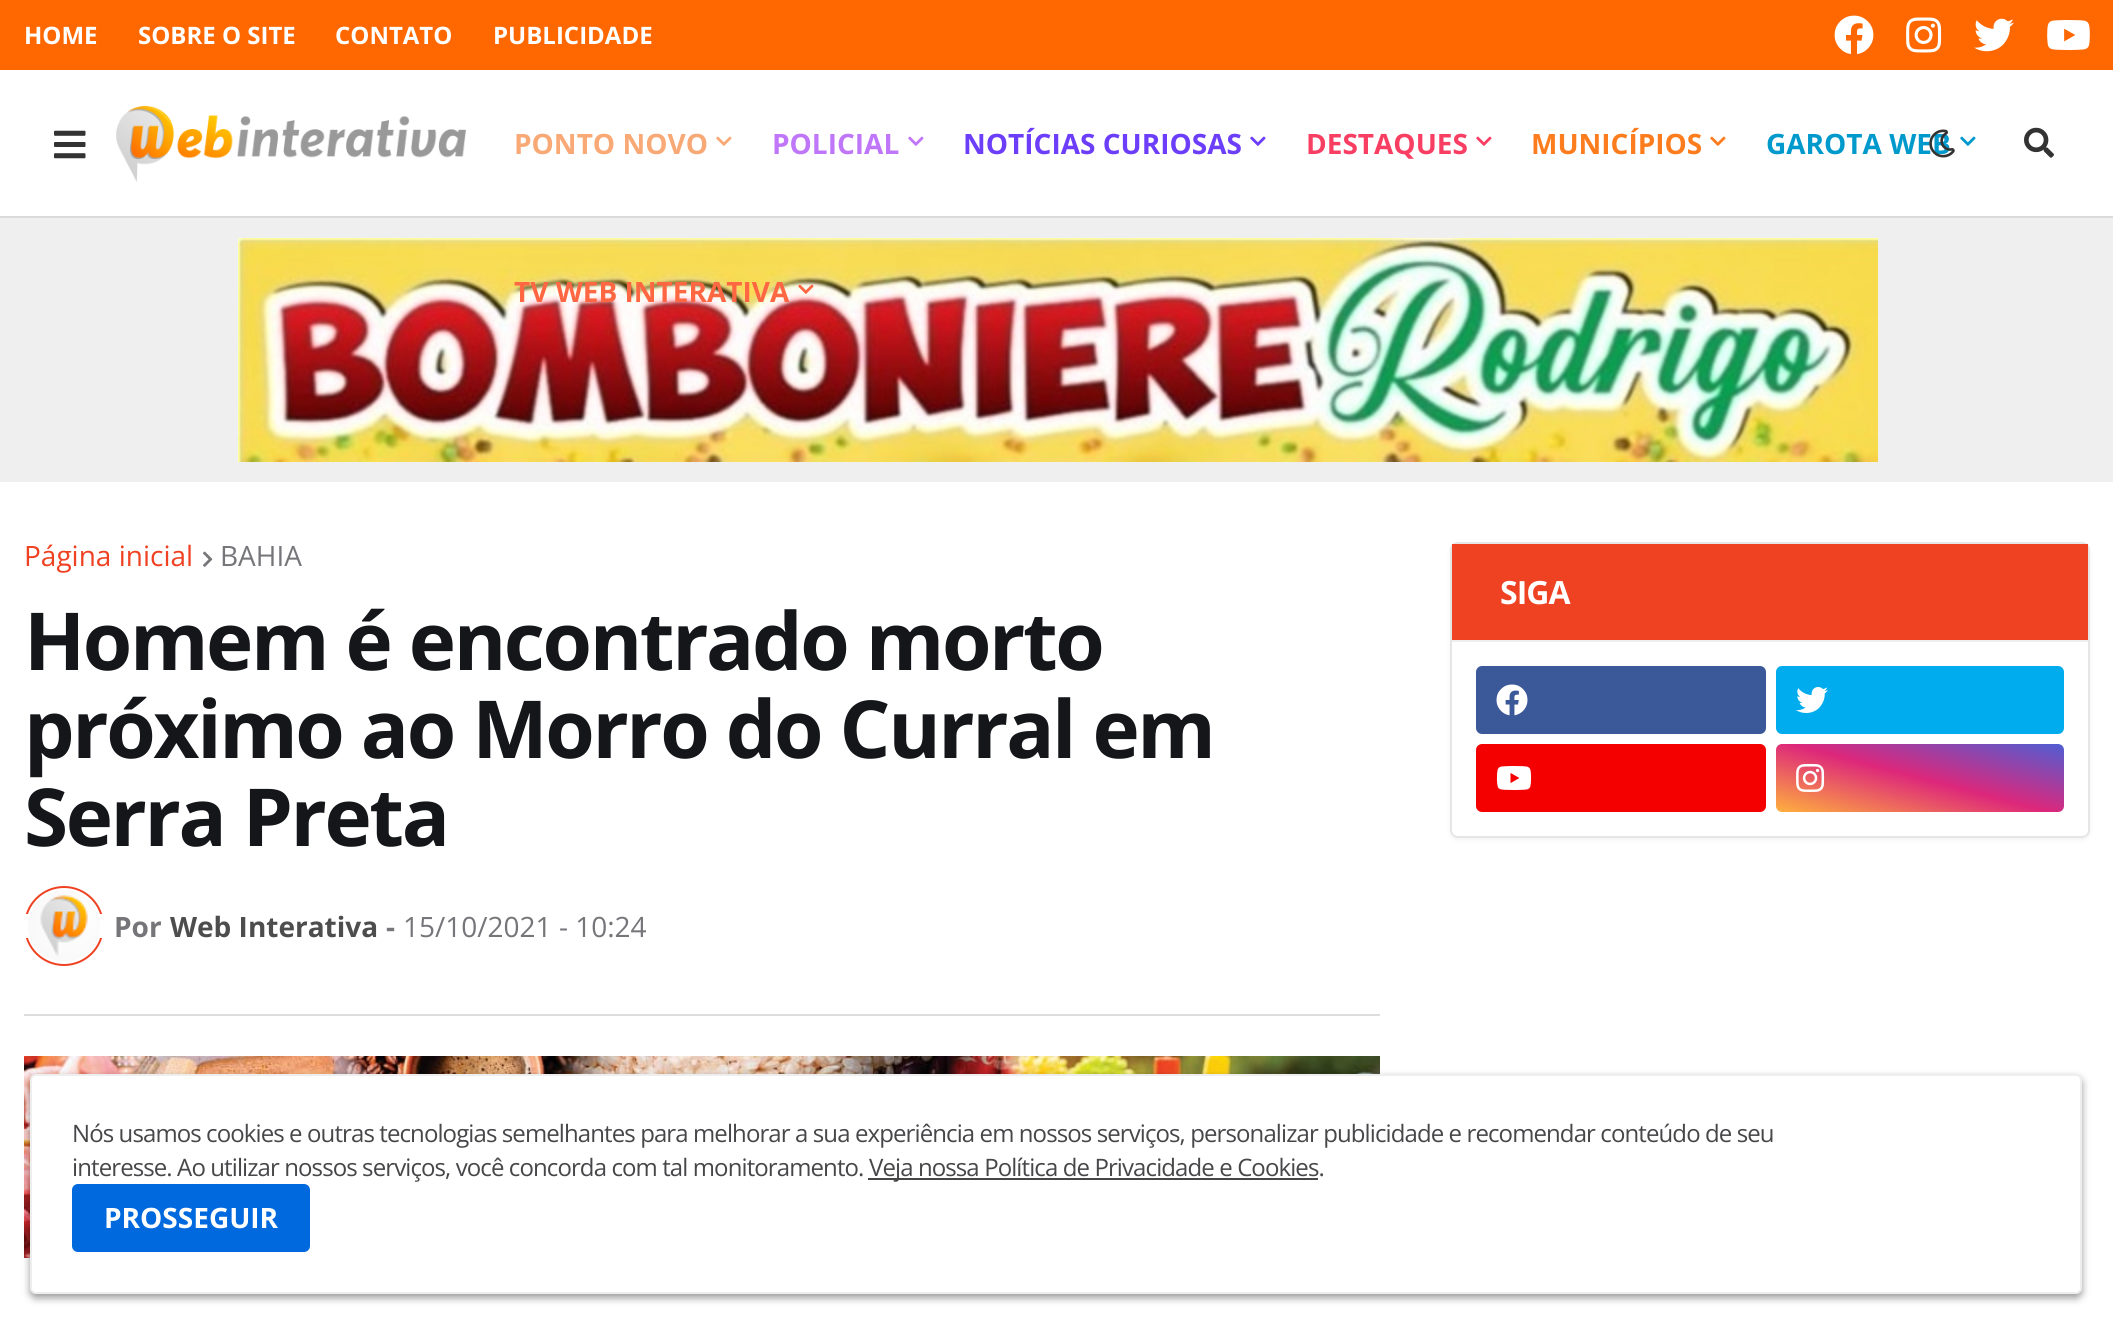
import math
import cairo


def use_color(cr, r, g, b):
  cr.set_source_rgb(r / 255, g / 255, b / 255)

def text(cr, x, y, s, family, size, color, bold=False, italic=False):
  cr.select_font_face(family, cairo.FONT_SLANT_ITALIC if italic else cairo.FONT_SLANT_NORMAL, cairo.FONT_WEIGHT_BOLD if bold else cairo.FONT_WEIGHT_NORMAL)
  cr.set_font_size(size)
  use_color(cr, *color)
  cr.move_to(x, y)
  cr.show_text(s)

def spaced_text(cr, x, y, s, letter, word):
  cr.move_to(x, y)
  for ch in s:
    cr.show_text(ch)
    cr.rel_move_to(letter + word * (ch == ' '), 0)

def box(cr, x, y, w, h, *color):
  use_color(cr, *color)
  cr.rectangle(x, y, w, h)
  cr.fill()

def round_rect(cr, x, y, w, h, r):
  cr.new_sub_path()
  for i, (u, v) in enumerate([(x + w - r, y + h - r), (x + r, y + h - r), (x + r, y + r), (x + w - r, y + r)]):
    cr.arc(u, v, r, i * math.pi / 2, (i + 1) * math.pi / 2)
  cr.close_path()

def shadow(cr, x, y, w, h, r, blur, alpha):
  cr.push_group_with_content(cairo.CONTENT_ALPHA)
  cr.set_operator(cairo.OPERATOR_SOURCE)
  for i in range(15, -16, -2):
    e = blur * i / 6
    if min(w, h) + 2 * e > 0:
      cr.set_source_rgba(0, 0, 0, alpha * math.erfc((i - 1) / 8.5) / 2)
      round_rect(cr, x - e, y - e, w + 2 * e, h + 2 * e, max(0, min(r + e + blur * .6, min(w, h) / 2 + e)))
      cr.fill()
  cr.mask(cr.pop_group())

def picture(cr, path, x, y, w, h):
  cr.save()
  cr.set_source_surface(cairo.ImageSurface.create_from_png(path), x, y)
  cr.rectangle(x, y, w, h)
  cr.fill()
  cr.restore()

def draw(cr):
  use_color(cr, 255, 255, 255)
  cr.paint()
  box(cr, 0, 0, 2113, 70, 255, 104, 0)
  picture(cr, "img_01.png", 1834, 15, 40, 40)
  picture(cr, "img_02.png", 1906, 17, 36, 36)
  picture(cr, "img_03.png", 1974, 18, 40, 34)
  picture(cr, "img_04.png", 2047, 20, 43, 30)
  box(cr, 0, 216, 2113, 2, 218, 218, 218)
  picture(cr, "img_05.png", 54, 130, 32, 29)
  picture(cr, "img_06.png", 116, 106, 350, 76)
  picture(cr, "img_07.png", 716, 136, 16, 10)
  picture(cr, "img_08.png", 908, 136, 16, 10)
  picture(cr, "img_09.png", 1250, 136, 16, 10)
  picture(cr, "img_10.png", 1476, 136, 16, 10)
  picture(cr, "img_11.png", 1710, 136, 16, 10)
  picture(cr, "img_12.png", 1960, 136, 16, 10)
  box(cr, 0, 218, 2113, 264, 239, 239, 239)
  picture(cr, "img_16.png", 238, 238, 1640, 224)
  picture(cr, "img_13.png", 798, 284, 16, 10)
  picture(cr, "img_15.png", 2024, 127, 30, 31)
  box(cr, 24, 1014, 1356, 2, 221, 221, 221)
  picture(cr, "img_17.png", 203, 551, 10, 16)
  cr.arc(64, 926, 39, 0, 2 * math.pi)
  use_color(cr, 239, 66, 35)
  cr.stroke()
  box(cr, 24, 914, 80, 24, 255, 255, 255)
  picture(cr, "img_18.png", 28, 890, 72, 72)
  picture(cr, "img_19.png", 24, 1056, 1356, 202)
  use_color(cr, 0, 0, 0)
  shadow(cr, 1450, 544, 640, 296, 8, 2, 0.05)
  use_color(cr, 255, 255, 255)
  round_rect(cr, 1451, 543, 638, 294, 7)
  cr.fill_preserve()
  use_color(cr, 230, 230, 230)
  cr.stroke()
  box(cr, 1452, 544, 636, 96, 239, 66, 35)
  box(cr, 1452, 640, 636, 2, 238, 238, 238)
  use_color(cr, 59, 89, 153)
  round_rect(cr, 1476, 666, 290, 68, 6)
  cr.fill()
  picture(cr, "img_20.png", 1496, 684, 32, 32)
  use_color(cr, 0, 172, 238)
  round_rect(cr, 1776, 666, 288, 68, 6)
  cr.fill()
  picture(cr, "img_21.png", 1796, 687, 32, 26)
  use_color(cr, 245, 0, 0)
  round_rect(cr, 1476, 744, 290, 68, 6)
  cr.fill()
  picture(cr, "img_22.png", 1496, 766, 36, 24)
  gradient = cairo.LinearGradient(1902, 846, 1938, 710)
  gradient.add_color_stop_rgba(0, 1, 0.694, 0.239, 1)
  gradient.add_color_stop_rgba(0.5, 0.867, 0.153, 0.482, 1)
  gradient.add_color_stop_rgba(1, 0.302, 0.369, 0.831, 1)
  cr.set_source(gradient)
  round_rect(cr, 1776, 744, 288, 68, 6)
  cr.fill()
  picture(cr, "img_23.png", 1796, 764, 29, 28)
  use_color(cr, 0, 0, 0)
  shadow(cr, 30, 1078, 2052, 220, 6, 4, 0.4)
  use_color(cr, 255, 255, 255)
  round_rect(cr, 31, 1075, 2050, 218, 5)
  cr.fill_preserve()
  use_color(cr, 238, 238, 238)
  cr.stroke()
  box(cr, 868, 1178, 450, 2, 71, 71, 74)
  use_color(cr, 0, 105, 222)
  round_rect(cr, 72, 1184, 238, 68, 6)
  cr.fill()
  text(cr, 24, 44, "HOME", "Open Sans", 24, (255, 255, 255), bold=True)
  text(cr, 138, 44, "SOBRE O SITE", "Open Sans", 24, (255, 255, 255), bold=True)
  text(cr, 335, 44, "CONTATO", "Open Sans", 24, (255, 255, 255), bold=True)
  text(cr, 493, 44, "PUBLICIDADE", "Open Sans", 24, (255, 255, 255), bold=True)
  text(cr, 514, 154, "PONTO NOVO", "Open Sans", 28, (248, 169, 118), bold=True)
  text(cr, 772, 154, "POLICIAL", "Open Sans", 28, (191, 118, 248), bold=True)
  text(cr, 963, 154, "NOTÍCIAS CURIOSAS", "Open Sans", 28, (108, 62, 249), bold=True)
  text(cr, 1306, 154, "DESTAQUES", "Open Sans", 28, (249, 62, 99), bold=True)
  text(cr, 1531, 154, "MUNICÍPIOS", "Open Sans", 28, (253, 125, 30), bold=True)
  text(cr, 1766, 154, "GAROTA WEB", "Open Sans", 28, (0, 153, 204), bold=True)
  text(cr, 514, 302, "TV WEB INTERATIVA", "Open Sans", 28, (255, 102, 66), bold=True)
  picture(cr, "img_14.png", 1929, 129, 26, 29)
  text(cr, 24, 566, "Página inicial", "Open Sans", 28, (239, 66, 35))
  text(cr, 220, 566, "BAHIA", "Open Sans", 28, (118, 118, 122))
  cr.select_font_face("Open Sans", cairo.FONT_SLANT_NORMAL, cairo.FONT_WEIGHT_BOLD)
  cr.set_font_size(80)
  use_color(cr, 21, 22, 26)
  spaced_text(cr, 24, 670, "Homem é encontrado morto", -2.4, 0)
  spaced_text(cr, 24, 758, "próximo ao Morro do Curral em", -2.4, 0)
  spaced_text(cr, 24, 846, "Serra Preta", -2.4, 0)
  text(cr, 114, 937, "Por", "Open Sans", 28, (118, 118, 122), bold=True)
  text(cr, 170, 937, "Web Interativa", "Open Sans", 28, (77, 77, 77), bold=True)
  text(cr, 386, 937, "-", "Open Sans", 28, (118, 118, 122), bold=True)
  text(cr, 403, 937, "15/10/2021 - 10:24", "Open Sans", 28, (118, 118, 122))
  cr.select_font_face("Open Sans", cairo.FONT_SLANT_NORMAL, cairo.FONT_WEIGHT_BOLD)
  cr.set_font_size(32)
  use_color(cr, 255, 255, 255)
  spaced_text(cr, 1500, 604, "SIGA", -1, 0)
  cr.select_font_face("Open Sans")
  cr.set_font_size(24)
  use_color(cr, 71, 71, 74)
  spaced_text(cr, 72, 1142, "Nós usamos cookies e outras tecnologias semelhantes para melhorar a sua experiência em nossos serviços, personalizar publicidade e recomendar conteúdo de seu", -0.9, 0)
  spaced_text(cr, 72, 1176, "interesse. Ao utilizar nossos serviços, você concorda com tal monitoramento.", -0.9, 0)
  spaced_text(cr, 869, 1176, "Veja nossa Política de Privacidade e Cookies.", -0.9, 0)
  text(cr, 104, 1228, "PROSSEGUIR", "Open Sans", 28, (255, 255, 255), bold=True)


surface = cairo.ImageSurface(cairo.FORMAT_RGB24, 2113, 1324)
cr = cairo.Context(surface)
options = cairo.FontOptions()
options.set_hint_metrics(cairo.HINT_METRICS_OFF)
options.set_hint_style(cairo.HINT_STYLE_NONE)
cr.set_font_options(options)
cr.set_miter_limit(4)
draw(cr)
surface.write_to_png("out.png")
